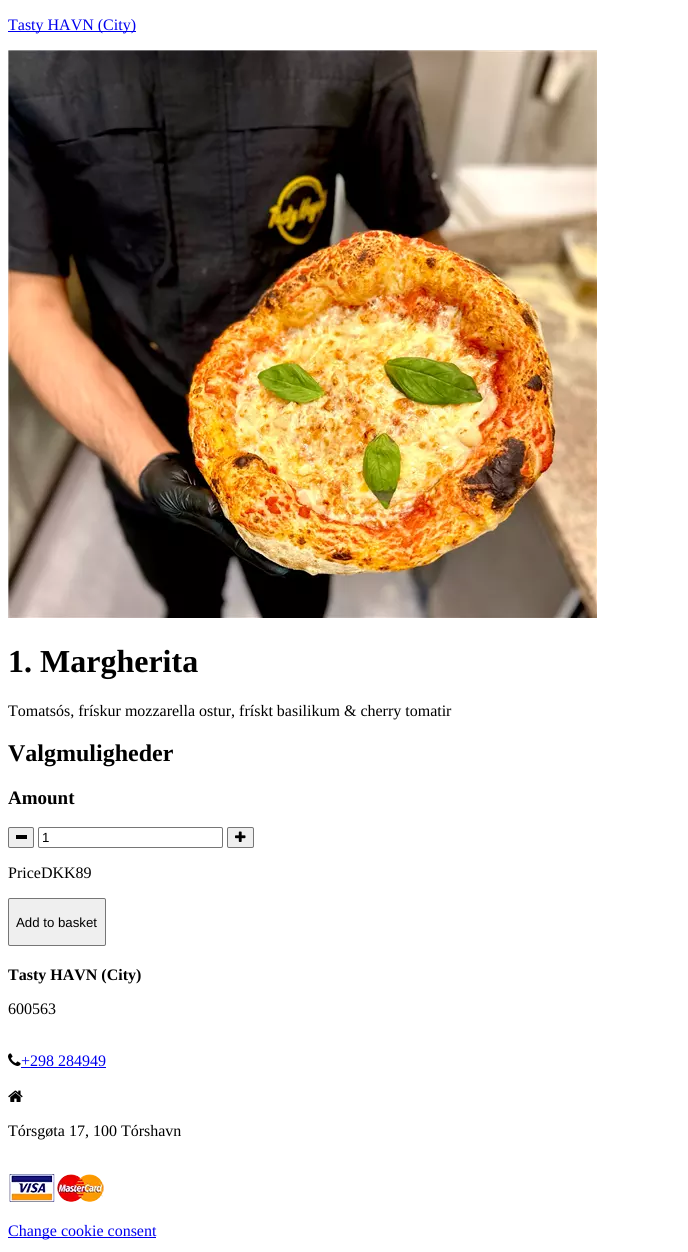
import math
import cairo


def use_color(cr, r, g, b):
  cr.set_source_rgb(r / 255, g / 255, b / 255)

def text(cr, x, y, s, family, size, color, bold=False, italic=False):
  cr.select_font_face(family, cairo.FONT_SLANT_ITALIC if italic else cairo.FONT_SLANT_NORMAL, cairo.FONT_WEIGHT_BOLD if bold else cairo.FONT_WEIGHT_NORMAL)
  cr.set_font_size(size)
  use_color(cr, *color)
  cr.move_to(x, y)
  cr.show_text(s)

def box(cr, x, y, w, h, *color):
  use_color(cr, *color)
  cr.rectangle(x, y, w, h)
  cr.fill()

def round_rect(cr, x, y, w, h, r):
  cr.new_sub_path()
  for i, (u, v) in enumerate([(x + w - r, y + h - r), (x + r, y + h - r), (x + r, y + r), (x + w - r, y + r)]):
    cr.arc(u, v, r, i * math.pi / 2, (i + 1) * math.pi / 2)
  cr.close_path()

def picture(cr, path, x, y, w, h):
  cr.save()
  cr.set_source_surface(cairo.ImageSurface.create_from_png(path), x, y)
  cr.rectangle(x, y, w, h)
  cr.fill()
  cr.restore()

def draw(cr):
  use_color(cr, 255, 255, 255)
  cr.paint()
  box(cr, 8, 31, 128, 1, 0, 0, 238)
  picture(cr, "img_01.png", 8, 50, 589, 568)
  use_color(cr, 239, 239, 239)
  round_rect(cr, 8.5, 827.5, 25, 20, 1.5)
  cr.fill_preserve()
  use_color(cr, 118, 118, 118)
  cr.set_line_width(1)
  cr.stroke()
  box(cr, 16, 835, 11, 4, 0, 0, 0)
  round_rect(cr, 38.5, 827.5, 184, 20, 1.5)
  use_color(cr, 118, 118, 118)
  cr.stroke()
  use_color(cr, 239, 239, 239)
  round_rect(cr, 227.5, 827.5, 26, 20, 1.5)
  cr.fill_preserve()
  use_color(cr, 118, 118, 118)
  cr.stroke()
  picture(cr, "img_02.png", 235, 831, 11, 11)
  use_color(cr, 239, 239, 239)
  round_rect(cr, 8.5, 898.5, 97, 47, 1.5)
  cr.fill_preserve()
  use_color(cr, 118, 118, 118)
  cr.stroke()
  picture(cr, "img_03.png", 8, 1053, 13, 13)
  box(cr, 21, 1067, 85, 1, 0, 0, 238)
  picture(cr, "img_04.png", 8, 1090, 15, 12)
  picture(cr, "img_05.png", 9, 1174, 95, 28)
  box(cr, 8, 1237, 148, 1, 0, 0, 238)
  text(cr, 8, 30, "Tasty HAVN (City)", "Liberation Serif", 16, (0, 0, 238))
  text(cr, 8, 672, "1. Margherita", "Liberation Serif", 32, (0, 0, 0), bold=True)
  text(cr, 8, 716, "Tomatsós, frískur mozzarella ostur, frískt basilikum & cherry tomatir", "Liberation Serif", 16, (0, 0, 0))
  text(cr, 8, 761, "Valgmuligheder", "Liberation Serif", 24, (0, 0, 0), bold=True)
  text(cr, 8, 804, "Amount", "Liberation Serif", 19, (0, 0, 0), bold=True)
  text(cr, 42, 842, "1", "Liberation Sans", 13.25, (0, 0, 0))
  text(cr, 8, 878, "PriceDKK89", "Liberation Serif", 16, (0, 0, 0))
  text(cr, 16, 927, "Add to basket", "Liberation Sans", 13.25, (0, 0, 0))
  text(cr, 8, 980, "Tasty HAVN (City)", "Liberation Serif", 16, (0, 0, 0), bold=True)
  text(cr, 8, 1014, "600563", "Liberation Serif", 16, (0, 0, 0))
  text(cr, 21, 1066, "+298 284949", "Liberation Serif", 16, (0, 0, 238))
  text(cr, 8, 1136, "Tórsgøta 17, 100 Tórshavn", "Liberation Serif", 16, (0, 0, 0))
  text(cr, 8, 1236, "Change cookie consent", "Liberation Serif", 16, (0, 0, 238))


surface = cairo.ImageSurface(cairo.FORMAT_RGB24, 688, 1252)
cr = cairo.Context(surface)
options = cairo.FontOptions()
options.set_hint_metrics(cairo.HINT_METRICS_OFF)
options.set_hint_style(cairo.HINT_STYLE_NONE)
cr.set_font_options(options)
cr.set_miter_limit(4)
draw(cr)
surface.write_to_png("out.png")
